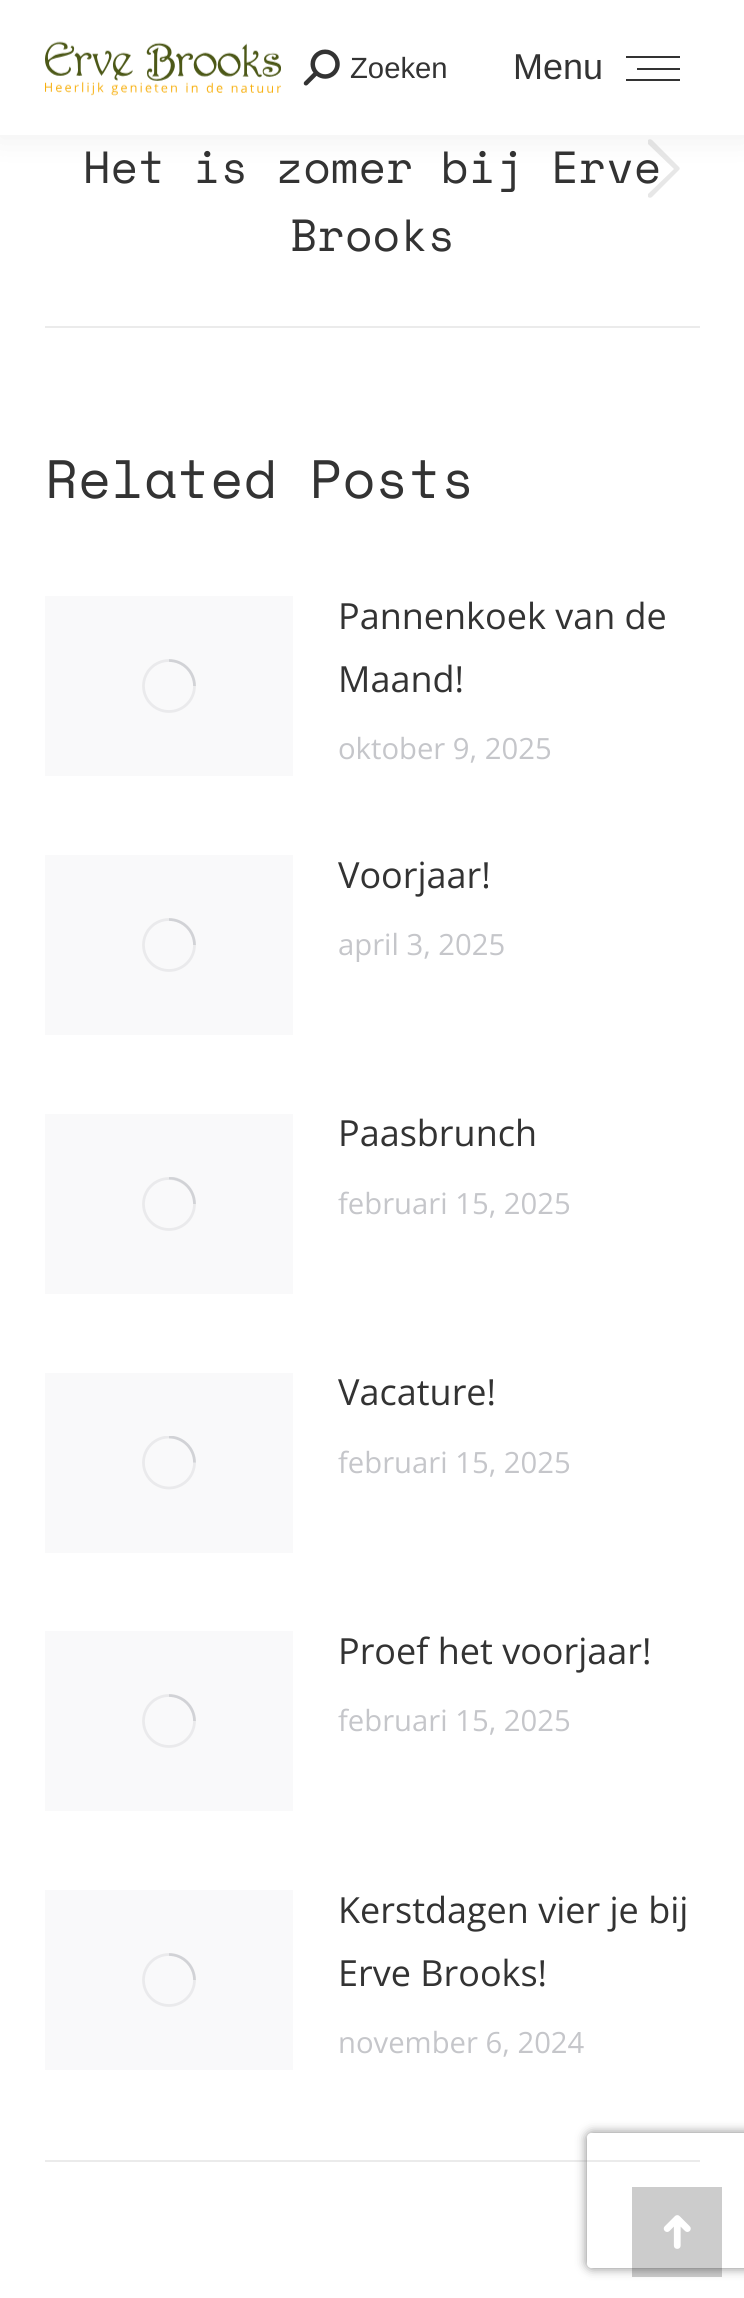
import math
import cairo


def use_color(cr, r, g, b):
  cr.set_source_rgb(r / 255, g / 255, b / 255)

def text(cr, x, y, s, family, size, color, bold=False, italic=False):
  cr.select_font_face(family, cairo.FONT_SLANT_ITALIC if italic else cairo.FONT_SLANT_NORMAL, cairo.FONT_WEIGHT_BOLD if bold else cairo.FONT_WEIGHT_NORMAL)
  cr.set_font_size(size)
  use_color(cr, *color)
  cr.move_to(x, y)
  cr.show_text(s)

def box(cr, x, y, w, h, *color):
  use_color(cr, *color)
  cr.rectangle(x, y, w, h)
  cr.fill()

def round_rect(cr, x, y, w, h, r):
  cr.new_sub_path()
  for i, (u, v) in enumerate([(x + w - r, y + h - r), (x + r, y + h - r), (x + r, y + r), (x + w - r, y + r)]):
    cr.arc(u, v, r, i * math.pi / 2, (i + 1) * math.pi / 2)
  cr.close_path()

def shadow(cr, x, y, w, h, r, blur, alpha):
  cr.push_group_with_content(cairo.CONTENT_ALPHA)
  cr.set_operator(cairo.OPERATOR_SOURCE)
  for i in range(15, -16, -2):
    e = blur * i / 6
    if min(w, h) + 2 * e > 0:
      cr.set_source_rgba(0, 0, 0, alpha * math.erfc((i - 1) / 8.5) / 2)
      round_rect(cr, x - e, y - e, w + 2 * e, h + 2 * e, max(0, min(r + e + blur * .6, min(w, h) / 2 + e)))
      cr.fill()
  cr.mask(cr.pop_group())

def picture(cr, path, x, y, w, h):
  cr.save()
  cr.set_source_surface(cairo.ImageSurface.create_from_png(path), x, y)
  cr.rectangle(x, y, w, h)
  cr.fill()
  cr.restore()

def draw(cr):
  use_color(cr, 255, 255, 255)
  cr.paint()
  box(cr, 45, 326, 655, 2, 235, 235, 235)
  box(cr, 45, 2160, 655, 2, 235, 235, 235)
  box(cr, 45, 596, 248, 180, 249, 249, 250)
  cr.arc(169, 686, 25.5, 0, 2 * math.pi)
  use_color(cr, 234, 234, 236)
  cr.set_line_width(2.8)
  cr.stroke()
  cr.new_path()
  cr.move_to(194.5, 686)
  cr.curve_to(194.5, 672, 183, 660.5, 169, 660.5)
  cr.set_source_rgba(0.545, 0.553, 0.58, 0.25)
  cr.stroke()
  box(cr, 45, 855, 248, 180, 249, 249, 250)
  cr.arc(169, 945, 25.5, 0, 2 * math.pi)
  use_color(cr, 234, 234, 236)
  cr.stroke()
  cr.new_path()
  cr.move_to(194.5, 945)
  cr.curve_to(194.5, 931, 183, 919.5, 169, 919.5)
  cr.set_source_rgba(0.545, 0.553, 0.58, 0.25)
  cr.stroke()
  box(cr, 45, 1114, 248, 180, 249, 249, 250)
  cr.arc(169, 1204, 25.5, 0, 2 * math.pi)
  use_color(cr, 234, 234, 236)
  cr.stroke()
  cr.save()
  cr.rectangle(142, 1177, 54, 54)
  cr.clip()
  cr.new_path()
  cr.move_to(194.5, 1204)
  cr.curve_to(194.5, 1189.5, 183, 1178, 169, 1178)
  cr.set_source_rgba(0.545, 0.553, 0.58, 0.25)
  cr.stroke()
  cr.restore()
  box(cr, 45, 1373, 248, 180, 249, 249, 250)
  cr.save()
  cr.rectangle(142, 1436, 54, 54)
  cr.clip()
  cr.arc(169, 1462.5, 25.5, 0, 2 * math.pi)
  use_color(cr, 234, 234, 236)
  cr.stroke()
  cr.new_path()
  cr.move_to(194.5, 1462.5)
  cr.curve_to(194.5, 1448.5, 183, 1437, 169, 1437)
  cr.set_source_rgba(0.545, 0.553, 0.58, 0.25)
  cr.stroke()
  cr.restore()
  box(cr, 45, 1631, 248, 180, 249, 249, 250)
  cr.arc(169, 1721, 25.5, 0, 2 * math.pi)
  use_color(cr, 234, 234, 236)
  cr.stroke()
  cr.new_path()
  cr.move_to(194.5, 1721)
  cr.curve_to(194.5, 1707, 183, 1695.5, 169, 1695.5)
  cr.set_source_rgba(0.545, 0.553, 0.58, 0.25)
  cr.stroke()
  box(cr, 45, 1890, 248, 180, 249, 249, 250)
  cr.arc(169, 1980, 25.5, 0, 2 * math.pi)
  use_color(cr, 234, 234, 236)
  cr.stroke()
  cr.new_path()
  cr.move_to(194.5, 1980)
  cr.curve_to(194.5, 1966, 183, 1954.5, 169, 1954.5)
  cr.set_source_rgba(0.545, 0.553, 0.58, 0.25)
  cr.stroke()
  cr.save()
  cr.set_fill_rule(cairo.FILL_RULE_EVEN_ODD)
  cr.new_path()
  cr.move_to(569, 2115)
  cr.line_to(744, 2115)
  cr.line_to(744, 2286)
  cr.line_to(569, 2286)
  cr.close_path()
  cr.move_to(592, 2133)
  cr.line_to(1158, 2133)
  cr.curve_to(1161, 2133, 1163, 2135, 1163, 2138)
  cr.line_to(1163, 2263)
  cr.curve_to(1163, 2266, 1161, 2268, 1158, 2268)
  cr.line_to(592, 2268)
  cr.curve_to(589, 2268, 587, 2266, 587, 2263)
  cr.line_to(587, 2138)
  cr.curve_to(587, 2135, 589, 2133, 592, 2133)
  cr.close_path()
  cr.clip()
  use_color(cr, 128, 128, 128)
  shadow(cr, 587, 2133, 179, 135, 5, 5.5, 1)
  cr.restore()
  cr.set_source_rgba(0, 0, 0, 0.2)
  cr.rectangle(632, 2187, 90, 90)
  cr.fill()
  picture(cr, "img_03.png", 663, 2215, 28, 34)
  text(cr, 83, 183, "Het is zomer bij Erve", "Space Mono", 45, (51, 51, 51))
  text(cr, 290, 251, "Brooks", "Space Mono", 45, (51, 51, 51))
  use_color(cr, 231, 231, 231)
  cr.new_path()
  cr.move_to(648, 140)
  cr.curve_to(649, 139, 651, 139, 652, 140)
  cr.line_to(679, 167)
  cr.curve_to(680, 168, 680, 169, 679, 170)
  cr.line_to(652, 197)
  cr.curve_to(651, 198, 649, 198, 648, 197)
  cr.curve_to(648, 196, 648, 195, 648, 194)
  cr.line_to(674, 169)
  cr.line_to(648, 144)
  cr.close_path()
  cr.fill()
  use_color(cr, 0, 0, 0)
  shadow(cr, -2, -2, 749, 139, 0, 17, 0.07)
  box(cr, 0, 0, 744, 135, 255, 255, 255)
  text(cr, 350, 78, "Zoeken", "Liberation Sans", 29.25, (51, 51, 51))
  picture(cr, "img_02.png", 303, 49, 37, 37)
  box(cr, 626, 79, 54, 2, 51, 51, 51)
  box(cr, 637, 68, 43, 2, 51, 51, 51)
  box(cr, 626, 56, 54, 2, 51, 51, 51)
  text(cr, 513, 79, "Menu", "Liberation Sans", 36, (51, 51, 51))
  picture(cr, "img_01.png", 45, 41, 236, 55)
  text(cr, 45, 498, "Related Posts", "Space Mono", 54, (51, 51, 51))
  text(cr, 338, 629, "Pannenkoek van de", "Open Sans", 36, (51, 51, 51))
  text(cr, 338, 692, "Maand!", "Open Sans", 36, (51, 51, 51))
  text(cr, 338, 759, "oktober 9, 2025", "Open Sans", 29.25, (197, 198, 202))
  text(cr, 338, 888, "Voorjaar!", "Open Sans", 36, (51, 51, 51))
  text(cr, 338, 955, "april 3, 2025", "Open Sans", 29.25, (197, 198, 202))
  text(cr, 338, 1146, "Paasbrunch", "Open Sans", 36, (51, 51, 51))
  text(cr, 338, 1214, "februari 15, 2025", "Open Sans", 29.25, (197, 198, 202))
  text(cr, 338, 1405, "Vacature!", "Open Sans", 36, (51, 51, 51))
  text(cr, 338, 1473, "februari 15, 2025", "Open Sans", 29.25, (197, 198, 202))
  text(cr, 338, 1664, "Proef het voorjaar!", "Open Sans", 36, (51, 51, 51))
  text(cr, 338, 1731, "februari 15, 2025", "Open Sans", 29.25, (197, 198, 202))
  text(cr, 338, 1923, "Kerstdagen vier je bij", "Open Sans", 36, (51, 51, 51))
  text(cr, 338, 1986, "Erve Brooks!", "Open Sans", 36, (51, 51, 51))
  text(cr, 338, 2053, "november 6, 2024", "Open Sans", 29.25, (197, 198, 202))


surface = cairo.ImageSurface(cairo.FORMAT_RGB24, 744, 2298)
cr = cairo.Context(surface)
options = cairo.FontOptions()
options.set_hint_metrics(cairo.HINT_METRICS_OFF)
options.set_hint_style(cairo.HINT_STYLE_NONE)
cr.set_font_options(options)
cr.set_miter_limit(4)
draw(cr)
surface.write_to_png("out.png")
